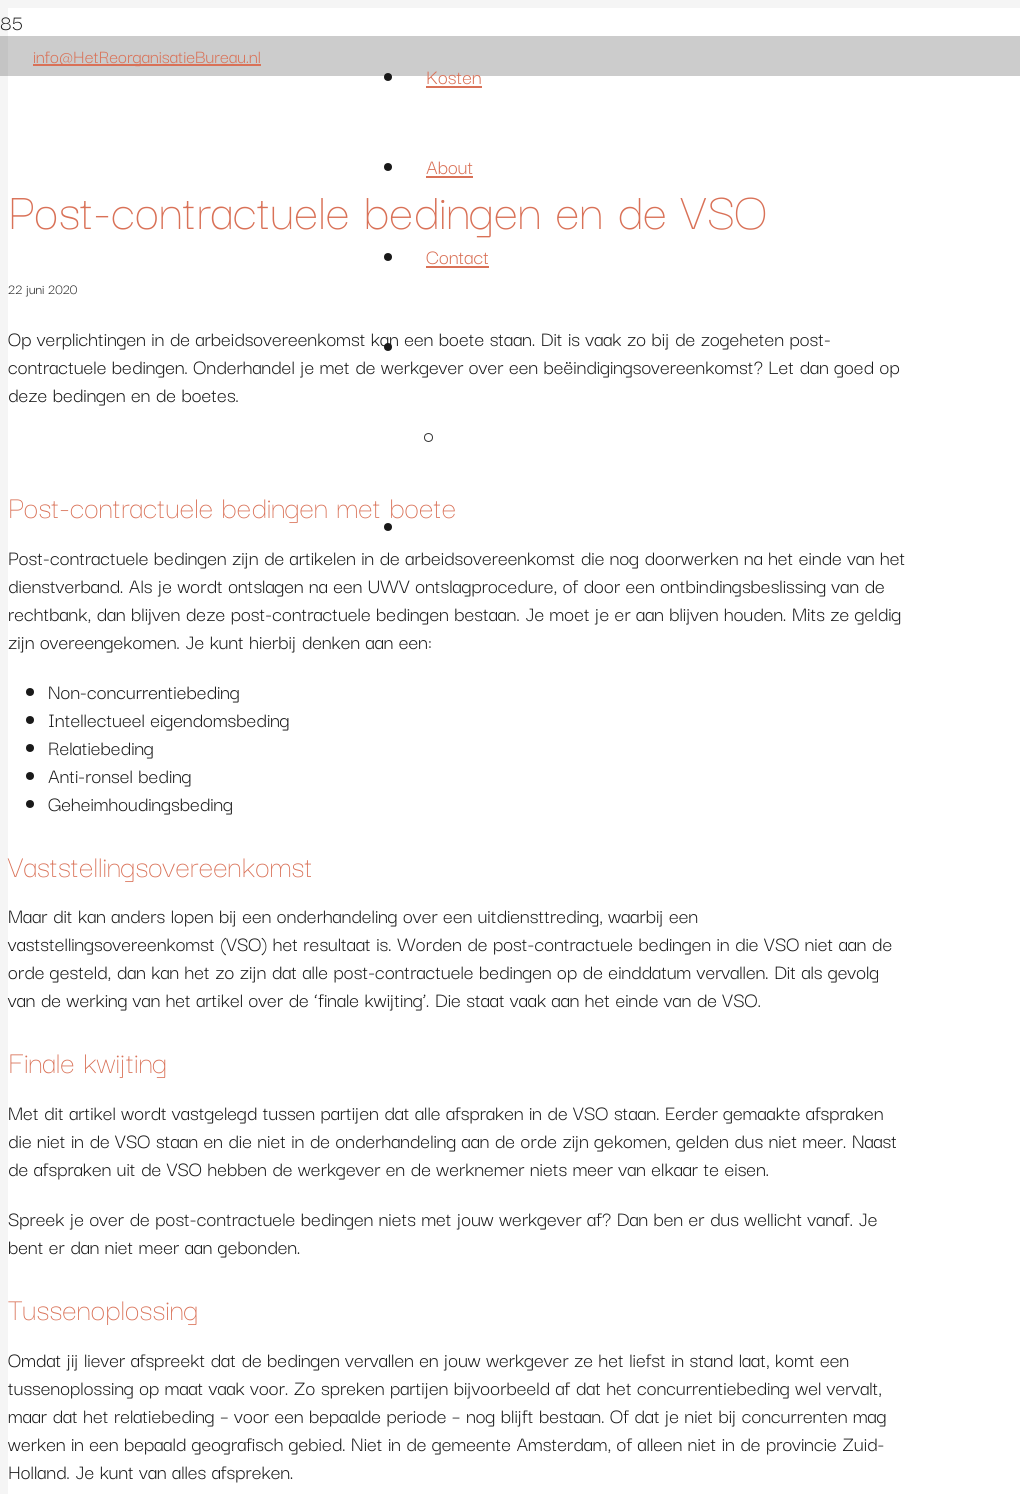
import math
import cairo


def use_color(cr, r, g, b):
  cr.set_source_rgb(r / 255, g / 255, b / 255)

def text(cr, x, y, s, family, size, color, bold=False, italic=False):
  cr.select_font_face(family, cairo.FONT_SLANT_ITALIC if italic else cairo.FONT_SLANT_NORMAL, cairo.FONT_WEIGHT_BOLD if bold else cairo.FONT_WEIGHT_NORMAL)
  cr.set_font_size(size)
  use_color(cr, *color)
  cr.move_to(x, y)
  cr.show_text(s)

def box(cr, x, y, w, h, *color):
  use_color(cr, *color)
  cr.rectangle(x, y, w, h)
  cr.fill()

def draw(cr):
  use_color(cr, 245, 245, 245)
  cr.paint()
  box(cr, 0, 36, 8, 40, 196, 196, 196)
  box(cr, 8, 8, 1012, 1486, 255, 255, 255)
  box(cr, 8, 36, 1012, 40, 204, 204, 204)
  box(cr, 33, 64, 228, 2, 217, 113, 87)
  use_color(cr, 26, 26, 26)
  cr.arc(388, 77, 4, 0, 2 * math.pi)
  cr.fill()
  box(cr, 426, 86, 56, 2, 217, 113, 87)
  use_color(cr, 26, 26, 26)
  cr.arc(388, 167, 4, 0, 2 * math.pi)
  cr.fill()
  box(cr, 426, 176, 47, 2, 217, 113, 87)
  use_color(cr, 26, 26, 26)
  cr.arc(388, 257, 4, 0, 2 * math.pi)
  cr.fill()
  box(cr, 426, 266, 63, 2, 217, 113, 87)
  use_color(cr, 26, 26, 26)
  cr.arc(388, 347, 4, 0, 2 * math.pi)
  cr.fill()
  cr.arc(428.5, 437.5, 4, 0, 2 * math.pi)
  use_color(cr, 51, 51, 51)
  cr.set_line_width(1)
  cr.stroke()
  use_color(cr, 26, 26, 26)
  cr.arc(388, 527, 4, 0, 2 * math.pi)
  cr.fill()
  cr.arc(30, 692, 4, 0, 2 * math.pi)
  cr.fill()
  cr.arc(30, 720, 4, 0, 2 * math.pi)
  cr.fill()
  cr.arc(30, 748, 4, 0, 2 * math.pi)
  cr.fill()
  cr.arc(30, 776, 4, 0, 2 * math.pi)
  cr.fill()
  cr.arc(30, 804, 4, 0, 2 * math.pi)
  cr.fill()
  text(cr, 0, 30, "85", "Darker Grotesque", 22, (26, 26, 26))
  text(cr, 33, 63, "info@HetReorganisatieBureau.nl", "Darker Grotesque", 20, (217, 113, 87))
  text(cr, 426, 84, "Kosten", "Darker Grotesque", 22, (217, 113, 87))
  text(cr, 426, 174, "About", "Darker Grotesque", 22, (217, 113, 87))
  text(cr, 426, 264, "Contact", "Darker Grotesque", 22, (217, 113, 87))
  text(cr, 8, 229, "Post-contractuele bedingen en de VSO", "Darker Grotesque Light", 55, (217, 113, 87))
  text(cr, 8, 294, "22 juni 2020", "Darker Grotesque", 15, (26, 26, 26))
  text(cr, 8, 346, "Op verplichtingen in de arbeidsovereenkomst kan een boete staan. Dit is vaak zo bij de zogeheten post-", "Darker Grotesque", 22, (26, 26, 26))
  text(cr, 8, 374, "contractuele bedingen. Onderhandel je met de werkgever over een beëindigingsovereenkomst? Let dan goed op", "Darker Grotesque", 22, (26, 26, 26))
  text(cr, 8, 402, "deze bedingen en de boetes.", "Darker Grotesque", 22, (26, 26, 26))
  text(cr, 8, 518, "Post-contractuele bedingen met boete", "Darker Grotesque Light", 33, (217, 113, 87))
  text(cr, 8, 565, "Post-contractuele bedingen zijn de artikelen in de arbeidsovereenkomst die nog doorwerken na het einde van het", "Darker Grotesque", 22, (26, 26, 26))
  text(cr, 8, 593, "dienstverband. Als je wordt ontslagen na een UWV ontslagprocedure, of door een ontbindingsbeslissing van de", "Darker Grotesque", 22, (26, 26, 26))
  text(cr, 8, 621, "rechtbank, dan blijven deze post-contractuele bedingen bestaan. Je moet je er aan blijven houden. Mits ze geldig", "Darker Grotesque", 22, (26, 26, 26))
  text(cr, 8, 649, "zijn overeengekomen. Je kunt hierbij denken aan een:", "Darker Grotesque", 22, (26, 26, 26))
  text(cr, 48, 699, "Non-concurrentiebeding", "Darker Grotesque", 22, (26, 26, 26))
  text(cr, 48, 727, "Intellectueel eigendomsbeding", "Darker Grotesque", 22, (26, 26, 26))
  text(cr, 48, 755, "Relatiebeding", "Darker Grotesque", 22, (26, 26, 26))
  text(cr, 48, 783, "Anti-ronsel beding", "Darker Grotesque", 22, (26, 26, 26))
  text(cr, 48, 811, "Geheimhoudingsbeding", "Darker Grotesque", 22, (26, 26, 26))
  text(cr, 8, 877, "Vaststellingsovereenkomst", "Darker Grotesque Light", 33, (217, 113, 87))
  text(cr, 8, 923, "Maar dit kan anders lopen bij een onderhandeling over een uitdiensttreding, waarbij een", "Darker Grotesque", 22, (26, 26, 26))
  text(cr, 8, 951, "vaststellingsovereenkomst (VSO) het resultaat is. Worden de post-contractuele bedingen in die VSO niet aan de", "Darker Grotesque", 22, (26, 26, 26))
  text(cr, 8, 979, "orde gesteld, dan kan het zo zijn dat alle post-contractuele bedingen op de einddatum vervallen. Dit als gevolg", "Darker Grotesque", 22, (26, 26, 26))
  text(cr, 8, 1007, "van de werking van het artikel over de ‘finale kwijting’. Die staat vaak aan het einde van de VSO.", "Darker Grotesque", 22, (26, 26, 26))
  text(cr, 8, 1073, "Finale kwijting", "Darker Grotesque Light", 33, (217, 113, 87))
  text(cr, 8, 1120, "Met dit artikel wordt vastgelegd tussen partijen dat alle afspraken in de VSO staan. Eerder gemaakte afspraken", "Darker Grotesque", 22, (26, 26, 26))
  text(cr, 8, 1148, "die niet in de VSO staan en die niet in de onderhandeling aan de orde zijn gekomen, gelden dus niet meer. Naast", "Darker Grotesque", 22, (26, 26, 26))
  text(cr, 8, 1176, "de afspraken uit de VSO hebben de werkgever en de werknemer niets meer van elkaar te eisen.", "Darker Grotesque", 22, (26, 26, 26))
  text(cr, 8, 1226, "Spreek je over de post-contractuele bedingen niets met jouw werkgever af? Dan ben er dus wellicht vanaf. Je", "Darker Grotesque", 22, (26, 26, 26))
  text(cr, 8, 1254, "bent er dan niet meer aan gebonden.", "Darker Grotesque", 22, (26, 26, 26))
  text(cr, 8, 1320, "Tussenoplossing", "Darker Grotesque Light", 33, (217, 113, 87))
  text(cr, 8, 1367, "Omdat jij liever afspreekt dat de bedingen vervallen en jouw werkgever ze het liefst in stand laat, komt een", "Darker Grotesque", 22, (26, 26, 26))
  text(cr, 8, 1395, "tussenoplossing op maat vaak voor. Zo spreken partijen bijvoorbeeld af dat het concurrentiebeding wel vervalt,", "Darker Grotesque", 22, (26, 26, 26))
  text(cr, 8, 1423, "maar dat het relatiebeding – voor een bepaalde periode – nog blijft bestaan. Of dat je niet bij concurrenten mag", "Darker Grotesque", 22, (26, 26, 26))
  text(cr, 8, 1451, "werken in een bepaald geografisch gebied. Niet in de gemeente Amsterdam, of alleen niet in de provincie Zuid-", "Darker Grotesque", 22, (26, 26, 26))
  text(cr, 8, 1479, "Holland. Je kunt van alles afspreken.", "Darker Grotesque", 22, (26, 26, 26))


surface = cairo.ImageSurface(cairo.FORMAT_RGB24, 1020, 1494)
cr = cairo.Context(surface)
options = cairo.FontOptions()
options.set_hint_metrics(cairo.HINT_METRICS_OFF)
options.set_hint_style(cairo.HINT_STYLE_NONE)
cr.set_font_options(options)
cr.set_miter_limit(4)
draw(cr)
surface.write_to_png("out.png")
